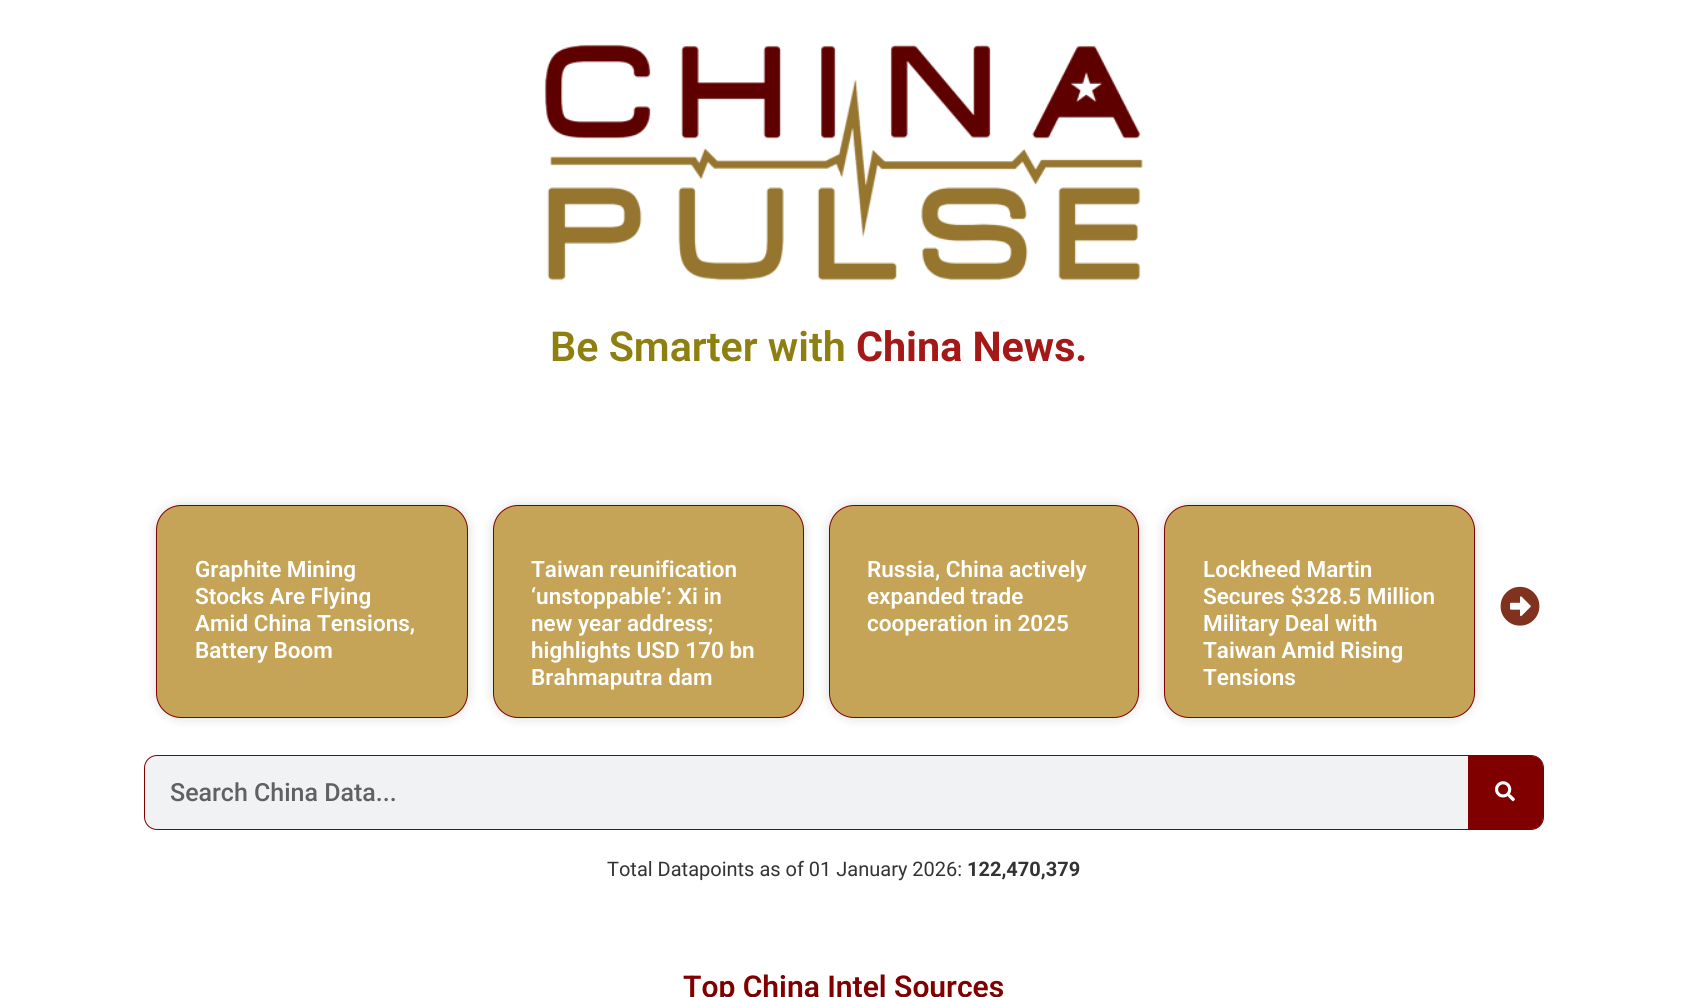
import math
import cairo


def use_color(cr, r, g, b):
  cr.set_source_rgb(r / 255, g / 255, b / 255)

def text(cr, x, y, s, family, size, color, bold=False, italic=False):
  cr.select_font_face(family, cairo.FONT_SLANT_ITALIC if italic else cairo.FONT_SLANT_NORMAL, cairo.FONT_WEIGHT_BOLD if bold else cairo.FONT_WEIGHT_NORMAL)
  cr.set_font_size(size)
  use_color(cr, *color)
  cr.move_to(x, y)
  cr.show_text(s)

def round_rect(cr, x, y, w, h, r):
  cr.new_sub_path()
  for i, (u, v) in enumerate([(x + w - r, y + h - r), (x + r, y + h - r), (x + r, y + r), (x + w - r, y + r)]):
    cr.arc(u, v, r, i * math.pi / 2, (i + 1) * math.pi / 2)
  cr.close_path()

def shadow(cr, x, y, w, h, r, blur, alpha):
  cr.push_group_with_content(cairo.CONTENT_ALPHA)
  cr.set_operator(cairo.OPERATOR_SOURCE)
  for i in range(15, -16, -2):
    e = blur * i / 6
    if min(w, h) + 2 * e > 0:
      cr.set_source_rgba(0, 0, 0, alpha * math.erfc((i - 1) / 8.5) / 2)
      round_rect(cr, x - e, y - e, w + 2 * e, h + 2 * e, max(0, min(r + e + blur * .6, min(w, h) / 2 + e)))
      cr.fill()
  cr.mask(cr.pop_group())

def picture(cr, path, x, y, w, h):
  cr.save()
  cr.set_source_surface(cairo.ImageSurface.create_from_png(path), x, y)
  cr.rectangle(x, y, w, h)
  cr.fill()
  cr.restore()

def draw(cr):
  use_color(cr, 255, 255, 255)
  cr.paint()
  picture(cr, "img_01.png", 544, 44, 599, 237)
  use_color(cr, 0, 0, 0)
  shadow(cr, 156, 505, 312, 213, 25, 6, 0.15)
  use_color(cr, 197, 164, 88)
  round_rect(cr, 156.5, 505.5, 311, 212, 24.5)
  cr.fill_preserve()
  use_color(cr, 128, 0, 0)
  cr.set_line_width(1)
  cr.stroke()
  use_color(cr, 0, 0, 0)
  shadow(cr, 493, 505, 311, 213, 25, 6, 0.15)
  use_color(cr, 197, 164, 88)
  round_rect(cr, 493.5, 505.5, 310, 212, 24.5)
  cr.fill_preserve()
  use_color(cr, 128, 0, 0)
  cr.stroke()
  use_color(cr, 0, 0, 0)
  shadow(cr, 829, 505, 310, 213, 25, 6, 0.15)
  use_color(cr, 197, 164, 88)
  round_rect(cr, 829.5, 505.5, 309, 212, 24.5)
  cr.fill_preserve()
  use_color(cr, 128, 0, 0)
  cr.stroke()
  use_color(cr, 0, 0, 0)
  shadow(cr, 1164, 505, 311, 213, 25, 6, 0.15)
  use_color(cr, 197, 164, 88)
  round_rect(cr, 1164.5, 505.5, 310, 212, 24.5)
  cr.fill_preserve()
  use_color(cr, 128, 0, 0)
  cr.stroke()
  picture(cr, "img_02.png", 1500, 586, 40, 40)
  use_color(cr, 241, 242, 243)
  round_rect(cr, 144.5, 755.5, 1399, 74, 12.5)
  cr.fill_preserve()
  use_color(cr, 128, 0, 0)
  cr.stroke()
  cr.new_path()
  cr.move_to(1468, 756)
  cr.line_to(1532, 756)
  cr.curve_to(1538, 756, 1543, 761, 1543, 767)
  cr.line_to(1543, 818)
  cr.curve_to(1543, 824, 1538, 829, 1532, 829)
  cr.line_to(1468, 829)
  cr.close_path()
  cr.fill()
  picture(cr, "img_03.png", 1495, 781, 20, 21)
  text(cr, 550, 361, "Be Smarter with", "Roboto SemiBold", 41.25, (141, 127, 16))
  text(cr, 856, 361, "China News.", "Roboto", 41.25, (165, 24, 24), bold=True)
  text(cr, 195, 577, "Graphite Mining", "Roboto SemiBold", 22.5, (255, 255, 255))
  text(cr, 195, 604, "Stocks Are Flying", "Roboto SemiBold", 22.5, (255, 255, 255))
  text(cr, 195, 631, "Amid China Tensions,", "Roboto SemiBold", 22.5, (255, 255, 255))
  text(cr, 195, 658, "Battery Boom", "Roboto SemiBold", 22.5, (255, 255, 255))
  text(cr, 531, 577, "Taiwan reunification", "Roboto SemiBold", 22.5, (255, 255, 255))
  text(cr, 531, 604, "‘unstoppable’: Xi in", "Roboto SemiBold", 22.5, (255, 255, 255))
  text(cr, 531, 631, "new year address;", "Roboto SemiBold", 22.5, (255, 255, 255))
  text(cr, 531, 658, "highlights USD 170 bn", "Roboto SemiBold", 22.5, (255, 255, 255))
  text(cr, 531, 685, "Brahmaputra dam", "Roboto SemiBold", 22.5, (255, 255, 255))
  text(cr, 867, 577, "Russia, China actively", "Roboto SemiBold", 22.5, (255, 255, 255))
  text(cr, 867, 604, "expanded trade", "Roboto SemiBold", 22.5, (255, 255, 255))
  text(cr, 867, 631, "cooperation in 2025", "Roboto SemiBold", 22.5, (255, 255, 255))
  text(cr, 1203, 577, "Lockheed Martin", "Roboto SemiBold", 22.5, (255, 255, 255))
  text(cr, 1203, 604, "Secures $328.5 Million", "Roboto SemiBold", 22.5, (255, 255, 255))
  text(cr, 1203, 631, "Military Deal with", "Roboto SemiBold", 22.5, (255, 255, 255))
  text(cr, 1203, 658, "Taiwan Amid Rising", "Roboto SemiBold", 22.5, (255, 255, 255))
  text(cr, 1203, 685, "Tensions", "Roboto SemiBold", 22.5, (255, 255, 255))
  text(cr, 170, 801, "Search China Data...", "Roboto Medium", 25, (96, 97, 97))
  text(cr, 607, 876, "Total Datapoints as of 01 January 2026:", "Roboto", 20, (51, 51, 51))
  text(cr, 967, 876, "122,470,379", "Roboto", 20, (51, 51, 51), bold=True)
  text(cr, 683, 997, "Top China Intel Sources", "Roboto SemiBold", 30, (128, 0, 0))


surface = cairo.ImageSurface(cairo.FORMAT_RGB24, 1687, 997)
cr = cairo.Context(surface)
options = cairo.FontOptions()
options.set_hint_metrics(cairo.HINT_METRICS_OFF)
options.set_hint_style(cairo.HINT_STYLE_NONE)
cr.set_font_options(options)
cr.set_miter_limit(4)
draw(cr)
surface.write_to_png("out.png")
